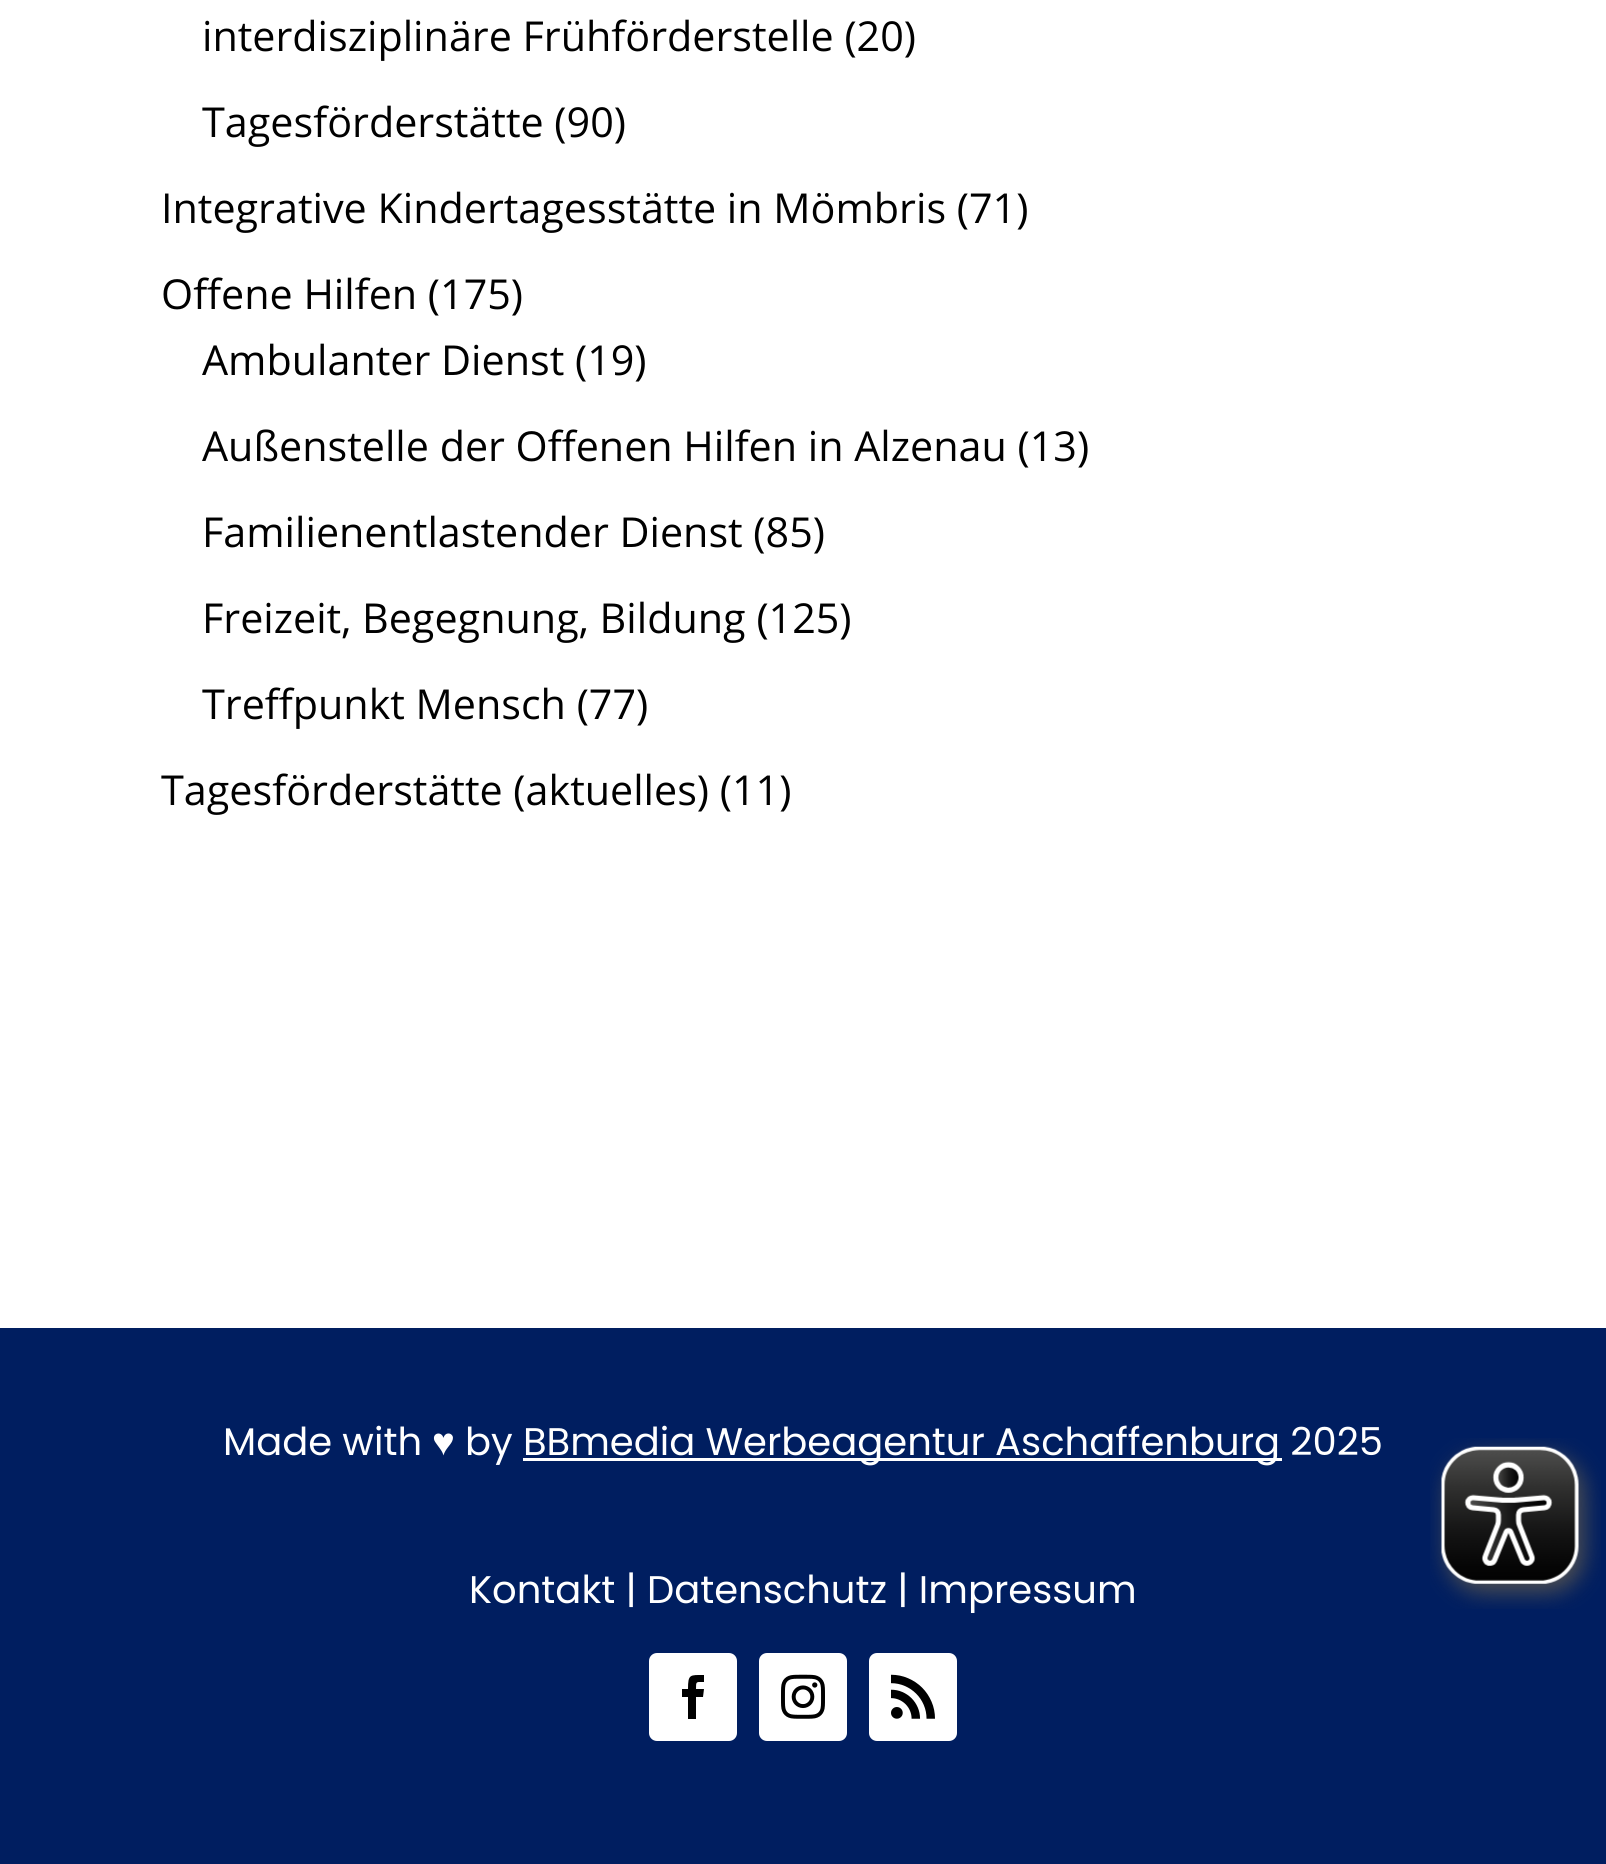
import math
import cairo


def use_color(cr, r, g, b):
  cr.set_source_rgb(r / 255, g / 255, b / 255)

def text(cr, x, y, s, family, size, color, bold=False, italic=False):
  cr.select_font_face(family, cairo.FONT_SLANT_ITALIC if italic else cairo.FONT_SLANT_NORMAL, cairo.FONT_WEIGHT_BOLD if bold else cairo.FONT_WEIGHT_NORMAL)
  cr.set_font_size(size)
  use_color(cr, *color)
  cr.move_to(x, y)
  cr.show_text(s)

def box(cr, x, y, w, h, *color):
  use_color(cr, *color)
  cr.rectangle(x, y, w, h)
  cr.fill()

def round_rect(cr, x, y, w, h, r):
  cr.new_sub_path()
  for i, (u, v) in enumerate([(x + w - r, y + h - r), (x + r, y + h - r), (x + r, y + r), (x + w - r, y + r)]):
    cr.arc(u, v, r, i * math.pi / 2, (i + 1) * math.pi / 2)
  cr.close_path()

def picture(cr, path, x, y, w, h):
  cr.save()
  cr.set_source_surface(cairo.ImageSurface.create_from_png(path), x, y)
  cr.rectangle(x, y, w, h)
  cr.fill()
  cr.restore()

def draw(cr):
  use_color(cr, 255, 255, 255)
  cr.paint()
  box(cr, 0, 1328, 1606, 536, 0, 30, 96)
  box(cr, 523, 1458, 759, 3, 255, 255, 255)
  round_rect(cr, 649, 1653, 88, 88, 8)
  cr.fill()
  use_color(cr, 0, 0, 0)
  cr.new_path()
  cr.move_to(688, 1719)
  cr.line_to(696, 1719)
  cr.line_to(696, 1697)
  cr.line_to(703, 1697)
  cr.line_to(704, 1689)
  cr.line_to(696, 1689)
  cr.curve_to(696, 1681, 696, 1682, 704, 1682)
  cr.line_to(704, 1675)
  cr.curve_to(690, 1675, 688, 1674, 688, 1689)
  cr.line_to(682, 1689)
  cr.line_to(682, 1697)
  cr.line_to(688, 1697)
  cr.close_path()
  cr.fill()
  use_color(cr, 255, 255, 255)
  round_rect(cr, 759, 1653, 88, 88, 8)
  cr.fill()
  picture(cr, "img_01.png", 781, 1674, 44, 45)
  round_rect(cr, 869, 1653, 88, 88, 8)
  cr.fill()
  picture(cr, "img_02.png", 891, 1674, 44, 45)
  picture(cr, "img_03.png", 1430, 1438, 171, 171)
  text(cr, 202, 51, "interdisziplinäre Frühförderstelle (20)", "Open Sans", 41.25, (0, 0, 0))
  text(cr, 202, 137, "Tagesförderstätte (90)", "Open Sans", 41.25, (0, 0, 0))
  text(cr, 161, 223, "Integrative Kindertagesstätte in Mömbris (71)", "Open Sans", 41.25, (0, 0, 0))
  text(cr, 161, 309, "Offene Hilfen (175)", "Open Sans", 41.25, (0, 0, 0))
  text(cr, 202, 375, "Ambulanter Dienst (19)", "Open Sans", 41.25, (0, 0, 0))
  text(cr, 202, 461, "Außenstelle der Offenen Hilfen in Alzenau (13)", "Open Sans", 41.25, (0, 0, 0))
  text(cr, 202, 547, "Familienentlastender Dienst (85)", "Open Sans", 41.25, (0, 0, 0))
  text(cr, 202, 633, "Freizeit, Begegnung, Bildung (125)", "Open Sans", 41.25, (0, 0, 0))
  text(cr, 202, 719, "Treffpunkt Mensch (77)", "Open Sans", 41.25, (0, 0, 0))
  text(cr, 161, 805, "Tagesförderstätte (aktuelles) (11)", "Open Sans", 41.25, (0, 0, 0))
  text(cr, 223, 1455, "Made with", "Poppins", 38.5, (255, 255, 255))
  text(cr, 432, 1455, "♥", "Liberation Sans", 38.5, (255, 255, 255))
  text(cr, 465, 1455, "by", "Poppins", 38.5, (255, 255, 255))
  text(cr, 523, 1455, "BBmedia Werbeagentur Aschaffenburg 2025", "Poppins", 38.5, (255, 255, 255))
  text(cr, 469, 1603, "Kontakt | Datenschutz | Impressum", "Poppins", 38.5, (255, 255, 255))


surface = cairo.ImageSurface(cairo.FORMAT_RGB24, 1606, 1864)
cr = cairo.Context(surface)
options = cairo.FontOptions()
options.set_hint_metrics(cairo.HINT_METRICS_OFF)
options.set_hint_style(cairo.HINT_STYLE_NONE)
cr.set_font_options(options)
cr.set_miter_limit(4)
draw(cr)
surface.write_to_png("out.png")
